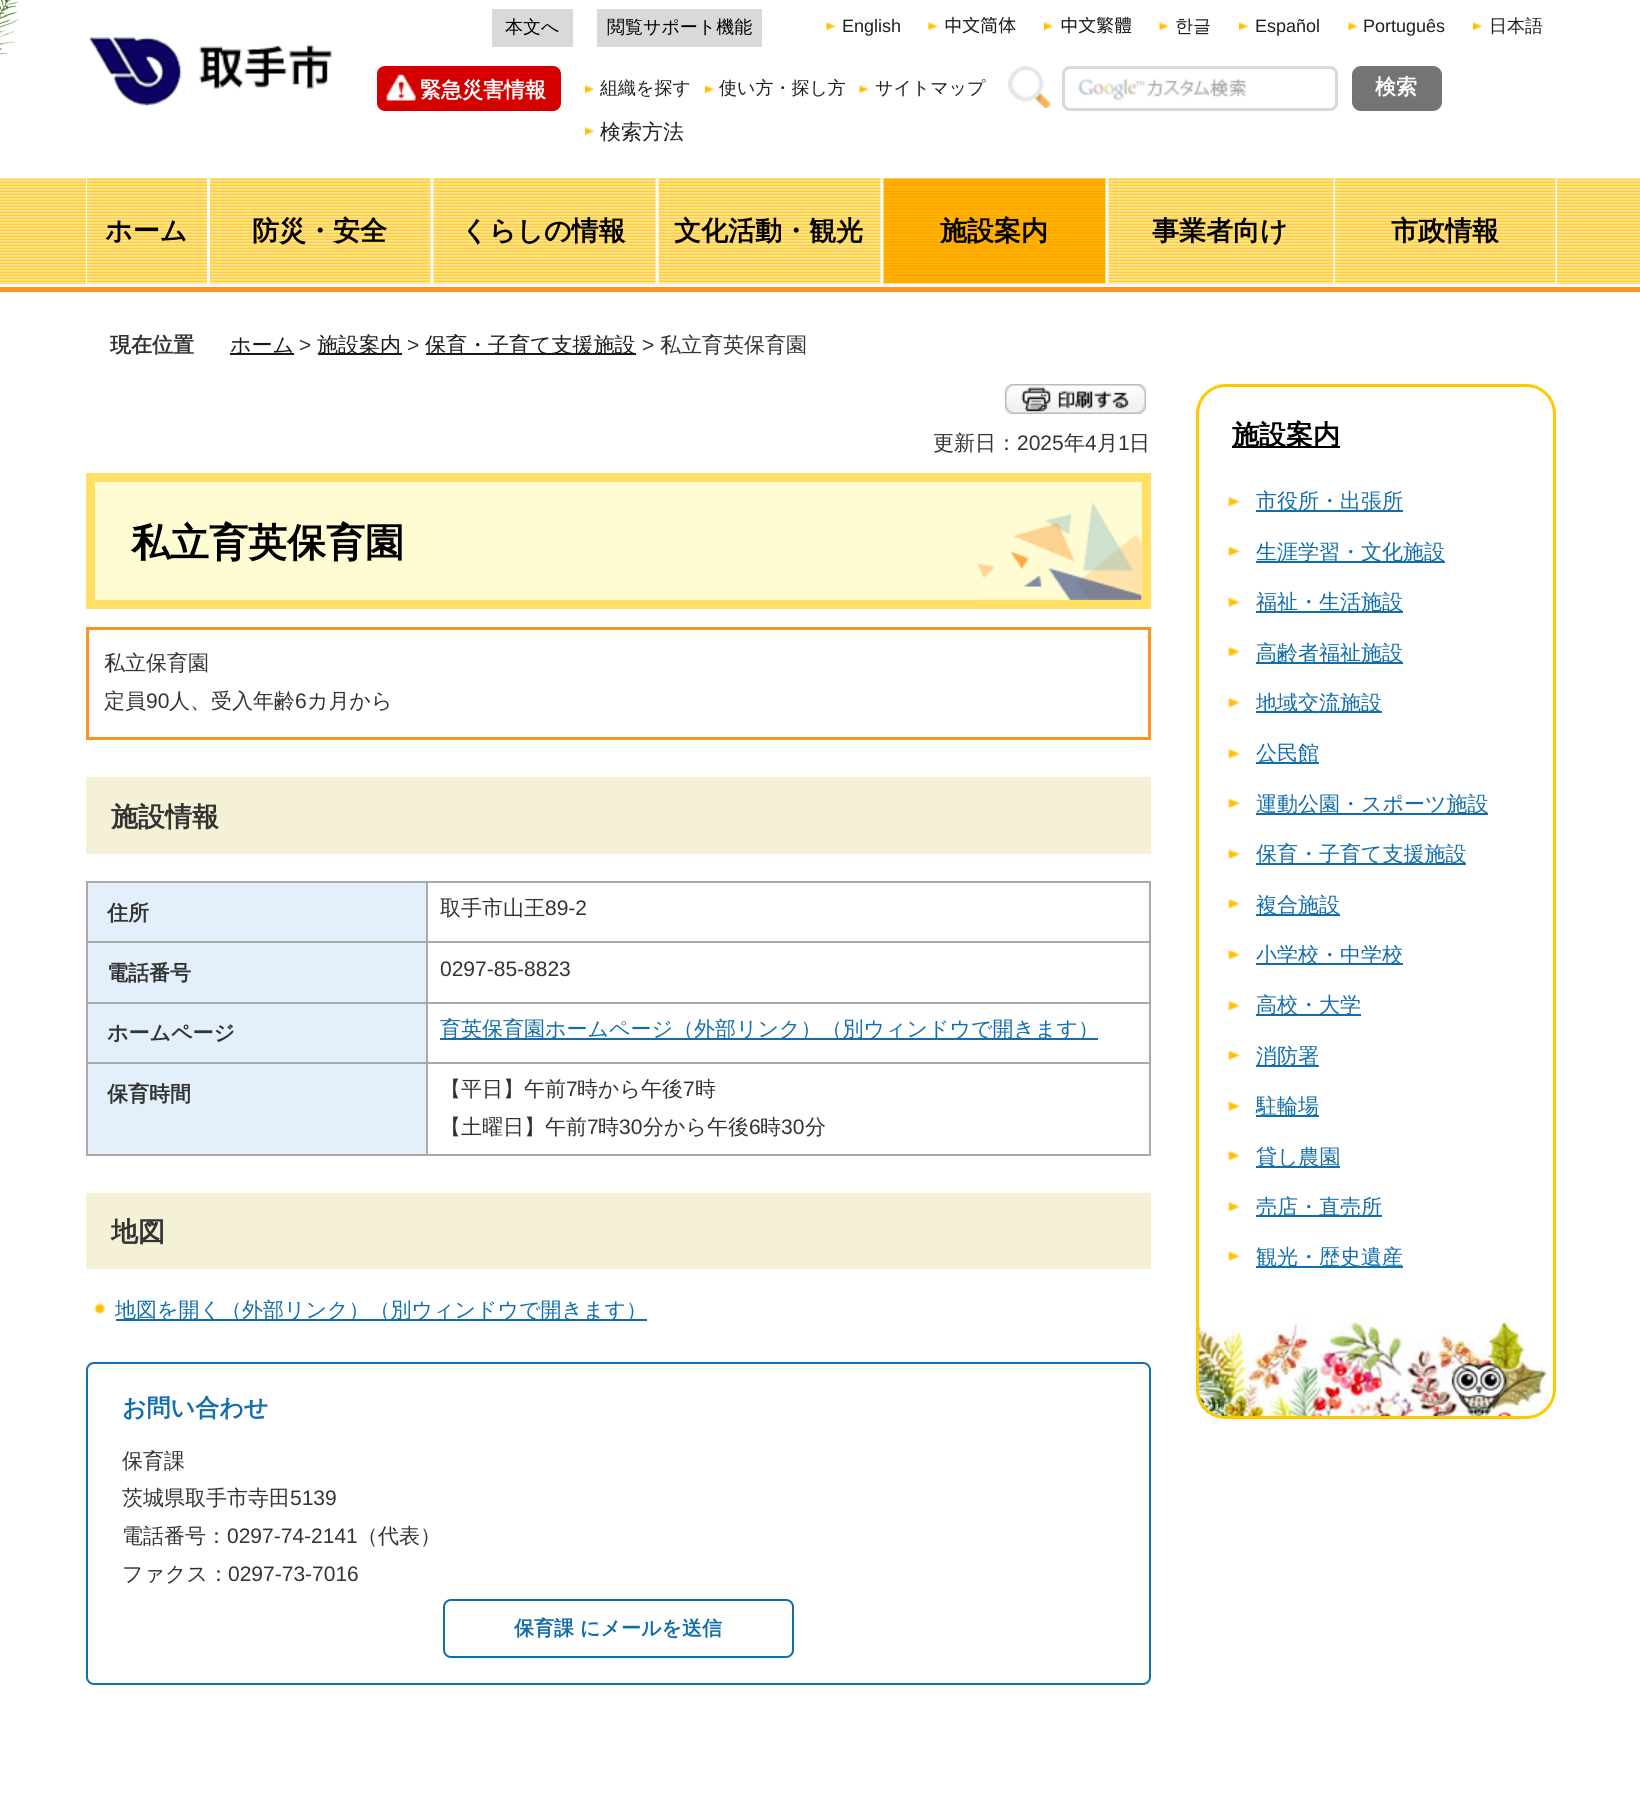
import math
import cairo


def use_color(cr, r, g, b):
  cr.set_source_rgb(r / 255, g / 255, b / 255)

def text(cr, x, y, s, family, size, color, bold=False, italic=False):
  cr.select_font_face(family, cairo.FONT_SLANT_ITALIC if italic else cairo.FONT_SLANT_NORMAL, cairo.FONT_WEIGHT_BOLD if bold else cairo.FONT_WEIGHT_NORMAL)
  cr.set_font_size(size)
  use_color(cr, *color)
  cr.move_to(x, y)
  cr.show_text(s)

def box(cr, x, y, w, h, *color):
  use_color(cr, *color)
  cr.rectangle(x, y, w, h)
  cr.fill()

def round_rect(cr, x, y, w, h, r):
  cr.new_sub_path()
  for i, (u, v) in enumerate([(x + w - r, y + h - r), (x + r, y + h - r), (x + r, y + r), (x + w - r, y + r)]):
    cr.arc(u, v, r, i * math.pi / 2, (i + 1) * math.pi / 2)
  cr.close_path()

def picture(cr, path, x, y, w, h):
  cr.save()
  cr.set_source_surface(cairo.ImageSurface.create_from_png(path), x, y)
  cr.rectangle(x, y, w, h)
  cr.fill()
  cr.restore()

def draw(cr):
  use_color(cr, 255, 255, 255)
  cr.paint()
  picture(cr, "img_01.png", 0, 0, 19, 55)
  picture(cr, "img_02.png", 89, 36, 243, 70)
  box(cr, 492, 9, 81, 38, 217, 217, 217)
  box(cr, 597, 9, 165, 38, 217, 217, 217)
  picture(cr, "img_03.png", 826, 22, 10, 8)
  picture(cr, "img_03.png", 928, 22, 10, 8)
  picture(cr, "img_04.png", 1044, 22, 9, 8)
  picture(cr, "img_05.png", 1159, 22, 10, 8)
  picture(cr, "img_04.png", 1239, 22, 9, 8)
  picture(cr, "img_05.png", 1348, 22, 10, 8)
  picture(cr, "img_04.png", 1473, 22, 9, 8)
  use_color(cr, 212, 0, 0)
  round_rect(cr, 377, 66, 184, 45, 8)
  cr.fill()
  box(cr, 384, 66, 170, 45, 212, 0, 0)
  picture(cr, "img_06.png", 385, 73, 31, 28)
  picture(cr, "img_04.png", 585, 85, 9, 8)
  picture(cr, "img_04.png", 705, 85, 9, 8)
  picture(cr, "img_03.png", 859, 85, 10, 8)
  picture(cr, "img_07.png", 1008, 66, 42, 42)
  picture(cr, "img_08.png", 1078, 79, 169, 22)
  round_rect(cr, 1063.5, 67.5, 273, 42, 6.5)
  use_color(cr, 217, 217, 217)
  cr.set_line_width(3)
  cr.stroke()
  use_color(cr, 116, 116, 116)
  round_rect(cr, 1352, 66, 90, 45, 9)
  cr.fill()
  picture(cr, "img_04.png", 585, 127, 9, 8)
  box(cr, 0, 287, 1640, 5, 254, 147, 39)
  picture(cr, "img_09.png", 0, 178, 1640, 106)
  box(cr, 86, 179, 1471, 105, 255, 255, 255)
  picture(cr, "img_10.png", 87, 178, 120, 106)
  picture(cr, "img_11.png", 210, 178, 221, 106)
  picture(cr, "img_12.png", 433, 178, 223, 106)
  picture(cr, "img_12.png", 658, 178, 223, 106)
  picture(cr, "img_13.png", 883, 178, 223, 106)
  picture(cr, "img_14.png", 1108, 178, 226, 106)
  picture(cr, "img_11.png", 1335, 178, 221, 106)
  box(cr, 230, 353, 64, 2, 24, 24, 24)
  box(cr, 318, 353, 84, 2, 24, 24, 24)
  box(cr, 426, 353, 210, 2, 24, 24, 24)
  picture(cr, "img_15.png", 1005, 384, 141, 30)
  box(cr, 95, 482, 1047, 118, 255, 252, 212)
  picture(cr, "img_16.png", 978, 502, 164, 98)
  cr.rectangle(90.5, 477.5, 1056, 127)
  use_color(cr, 255, 223, 100)
  cr.set_line_width(9)
  cr.stroke()
  cr.rectangle(87.5, 628.5, 1062, 110)
  use_color(cr, 253, 146, 32)
  cr.set_line_width(3)
  cr.stroke()
  box(cr, 86, 777, 1065, 77, 245, 241, 214)
  box(cr, 86, 881, 1065, 2, 170, 170, 170)
  box(cr, 1149, 881, 2, 274, 170, 170, 170)
  box(cr, 86, 1154, 1065, 2, 170, 170, 170)
  box(cr, 86, 881, 2, 274, 170, 170, 170)
  box(cr, 88, 883, 338, 58, 227, 240, 251)
  box(cr, 426, 941, 725, 2, 170, 170, 170)
  box(cr, 426, 1002, 725, 2, 170, 170, 170)
  box(cr, 426, 1062, 725, 2, 170, 170, 170)
  box(cr, 426, 1062, 2, 93, 170, 170, 170)
  box(cr, 86, 1062, 342, 2, 170, 170, 170)
  box(cr, 426, 1002, 2, 62, 170, 170, 170)
  box(cr, 86, 1002, 342, 2, 170, 170, 170)
  box(cr, 426, 941, 2, 63, 170, 170, 170)
  box(cr, 86, 941, 342, 2, 170, 170, 170)
  box(cr, 426, 881, 2, 61, 170, 170, 170)
  box(cr, 88, 943, 338, 59, 227, 240, 251)
  box(cr, 88, 1004, 338, 58, 227, 240, 251)
  box(cr, 440, 1038, 658, 2, 17, 109, 171)
  box(cr, 88, 1064, 338, 90, 227, 240, 251)
  box(cr, 86, 1193, 1065, 76, 245, 241, 214)
  picture(cr, "img_17.png", 94, 1303, 11, 12)
  box(cr, 116, 1319, 531, 2, 17, 109, 171)
  round_rect(cr, 87, 1363, 1063, 321, 7)
  use_color(cr, 18, 112, 174)
  cr.set_line_width(2)
  cr.stroke()
  round_rect(cr, 444, 1600, 349, 57, 7)
  use_color(cr, 15, 109, 174)
  cr.stroke()
  picture(cr, "img_18.png", 1198, 1317, 349, 99)
  round_rect(cr, 1197.5, 385.5, 357, 1032, 28.5)
  use_color(cr, 255, 201, 0)
  cr.set_line_width(3)
  cr.stroke()
  box(cr, 1232, 446, 108, 2, 0, 0, 0)
  picture(cr, "img_19.png", 1228, 496, 13, 11)
  box(cr, 1256, 510, 147, 2, 17, 109, 171)
  picture(cr, "img_20.png", 1228, 546, 13, 11)
  box(cr, 1256, 561, 189, 2, 17, 109, 171)
  picture(cr, "img_20.png", 1228, 597, 13, 11)
  box(cr, 1256, 611, 147, 2, 17, 109, 171)
  picture(cr, "img_19.png", 1228, 646, 13, 11)
  box(cr, 1256, 662, 147, 2, 17, 109, 171)
  picture(cr, "img_19.png", 1228, 697, 13, 11)
  box(cr, 1256, 711, 126, 2, 17, 109, 171)
  picture(cr, "img_19.png", 1228, 748, 13, 11)
  box(cr, 1256, 762, 63, 2, 17, 109, 171)
  picture(cr, "img_20.png", 1228, 798, 13, 11)
  box(cr, 1256, 813, 232, 2, 17, 109, 171)
  picture(cr, "img_20.png", 1228, 849, 13, 11)
  box(cr, 1256, 863, 210, 2, 17, 109, 171)
  picture(cr, "img_19.png", 1228, 898, 13, 11)
  box(cr, 1256, 914, 84, 2, 17, 109, 171)
  picture(cr, "img_19.png", 1228, 949, 13, 11)
  box(cr, 1256, 963, 147, 2, 17, 109, 171)
  picture(cr, "img_19.png", 1228, 1000, 13, 11)
  box(cr, 1256, 1014, 105, 2, 17, 109, 171)
  picture(cr, "img_20.png", 1228, 1050, 13, 11)
  box(cr, 1256, 1065, 63, 2, 17, 109, 171)
  picture(cr, "img_20.png", 1228, 1101, 13, 11)
  box(cr, 1256, 1115, 63, 2, 17, 109, 171)
  picture(cr, "img_19.png", 1228, 1150, 13, 11)
  box(cr, 1256, 1166, 84, 2, 17, 109, 171)
  picture(cr, "img_19.png", 1228, 1201, 13, 11)
  box(cr, 1256, 1215, 126, 2, 17, 109, 171)
  picture(cr, "img_20.png", 1228, 1251, 13, 11)
  box(cr, 1256, 1266, 147, 2, 17, 109, 171)
  text(cr, 505, 33, "本文へ", "WenQuanYi Zen Hei Medium", 18, (0, 0, 0))
  text(cr, 607, 33, "閲覧サポート機能", "WenQuanYi Zen Hei Medium", 18, (0, 0, 0))
  text(cr, 842, 32, "English", "Liberation Sans", 18, (31, 31, 31))
  text(cr, 944, 32, "中文简体", "Noto Sans CJK SC", 18, (31, 31, 31))
  text(cr, 1060, 32, "中文繁體", "Noto Sans CJK SC", 18, (31, 31, 31))
  text(cr, 1175, 32, "한글", "WenQuanYi Zen Hei Medium", 18, (31, 31, 31))
  text(cr, 1255, 32, "Español", "Liberation Sans", 18, (31, 31, 31))
  text(cr, 1363, 32, "Português", "Liberation Sans", 18, (31, 31, 31))
  text(cr, 1489, 32, "日本語", "WenQuanYi Zen Hei Medium", 18, (31, 31, 31))
  text(cr, 420, 97, "緊急災害情報", "WenQuanYi Zen Hei", 21, (255, 255, 255), bold=True)
  text(cr, 600, 94, "組織を探す", "WenQuanYi Zen Hei Medium", 18, (31, 31, 31))
  text(cr, 719, 94, "使い方・探し方", "WenQuanYi Zen Hei Medium", 18, (31, 31, 31))
  text(cr, 875, 94, "サイトマップ", "WenQuanYi Zen Hei Medium", 18, (31, 31, 31))
  text(cr, 1375, 94, "検索", "WenQuanYi Zen Hei", 21, (255, 255, 255), bold=True)
  text(cr, 600, 139, "検索方法", "WenQuanYi Zen Hei Medium", 21, (31, 31, 31))
  text(cr, 105, 240, "ホーム", "WenQuanYi Zen Hei", 27, (0, 0, 0), bold=True)
  text(cr, 252, 240, "防災・安全", "WenQuanYi Zen Hei", 27, (0, 0, 0), bold=True)
  text(cr, 461, 240, "くらしの情報", "WenQuanYi Zen Hei", 27, (0, 0, 0), bold=True)
  text(cr, 674, 240, "文化活動・観光", "WenQuanYi Zen Hei", 27, (0, 0, 0), bold=True)
  text(cr, 940, 240, "施設案内", "WenQuanYi Zen Hei", 27, (0, 0, 0), bold=True)
  text(cr, 1152, 240, "事業者向け", "WenQuanYi Zen Hei", 27, (0, 0, 0), bold=True)
  text(cr, 1391, 240, "市政情報", "WenQuanYi Zen Hei", 27, (0, 0, 0), bold=True)
  text(cr, 110, 352, "現在位置", "WenQuanYi Zen Hei", 21, (51, 51, 51), bold=True)
  text(cr, 230, 352, "ホーム", "WenQuanYi Zen Hei Medium", 21, (24, 24, 24))
  text(cr, 299, 352, ">", "Liberation Sans", 21, (51, 51, 51))
  text(cr, 317, 352, "施設案内", "WenQuanYi Zen Hei Medium", 21, (24, 24, 24))
  text(cr, 407, 352, ">", "Liberation Sans", 21, (51, 51, 51))
  text(cr, 425, 352, "保育・子育て支援施設", "WenQuanYi Zen Hei Medium", 21, (24, 24, 24))
  text(cr, 642, 352, ">", "Liberation Sans", 21, (51, 51, 51))
  text(cr, 660, 352, "私立育英保育園", "WenQuanYi Zen Hei Medium", 21, (51, 51, 51))
  text(cr, 933, 450, "更新日：", "WenQuanYi Zen Hei Medium", 21, (51, 51, 51))
  text(cr, 1017, 450, "2025", "Liberation Sans", 21, (51, 51, 51))
  text(cr, 1064, 450, "年", "WenQuanYi Zen Hei Medium", 21, (51, 51, 51))
  text(cr, 1085, 450, "4", "Liberation Sans", 21, (51, 51, 51))
  text(cr, 1097, 450, "月", "WenQuanYi Zen Hei Medium", 21, (51, 51, 51))
  text(cr, 1118, 450, "1", "Liberation Sans", 21, (51, 51, 51))
  text(cr, 1129, 450, "日", "WenQuanYi Zen Hei Medium", 21, (51, 51, 51))
  text(cr, 131, 556, "私立育英保育園", "WenQuanYi Zen Hei", 39, (0, 0, 0), bold=True)
  text(cr, 104, 670, "私立保育園", "WenQuanYi Zen Hei Medium", 21, (51, 51, 51))
  text(cr, 104, 708, "定員", "WenQuanYi Zen Hei Medium", 21, (51, 51, 51))
  text(cr, 146, 708, "90", "Liberation Sans", 21, (51, 51, 51))
  text(cr, 169, 708, "人、受入年齢", "WenQuanYi Zen Hei Medium", 21, (51, 51, 51))
  text(cr, 295, 708, "6", "Liberation Sans", 21, (51, 51, 51))
  text(cr, 307, 708, "カ月から", "WenQuanYi Zen Hei Medium", 21, (51, 51, 51))
  text(cr, 111, 826, "施設情報", "WenQuanYi Zen Hei", 27, (51, 51, 51), bold=True)
  text(cr, 107, 920, "住所", "WenQuanYi Zen Hei", 21, (51, 51, 51), bold=True)
  text(cr, 440, 915, "取手市山王", "WenQuanYi Zen Hei Medium", 21, (51, 51, 51))
  text(cr, 545, 915, "89-2", "Liberation Sans", 21, (51, 51, 51))
  text(cr, 107, 980, "電話番号", "WenQuanYi Zen Hei", 21, (51, 51, 51), bold=True)
  text(cr, 440, 976, "0297-85-8823", "Liberation Sans", 21, (51, 51, 51))
  text(cr, 107, 1040, "ホームページ", "WenQuanYi Zen Hei", 21, (51, 51, 51), bold=True)
  text(cr, 440, 1036, "育英保育園ホームページ（外部リンク）（別ウィンドウで開きます）", "WenQuanYi Zen Hei Medium", 21, (17, 109, 171))
  text(cr, 107, 1101, "保育時間", "WenQuanYi Zen Hei", 21, (51, 51, 51), bold=True)
  text(cr, 440, 1096, "【平日】午前", "WenQuanYi Zen Hei Medium", 21, (51, 51, 51))
  text(cr, 566, 1096, "7", "Liberation Sans", 21, (51, 51, 51))
  text(cr, 577, 1096, "時から午後", "WenQuanYi Zen Hei Medium", 21, (51, 51, 51))
  text(cr, 683, 1096, "7", "Liberation Sans", 21, (51, 51, 51))
  text(cr, 695, 1096, "時", "WenQuanYi Zen Hei Medium", 21, (51, 51, 51))
  text(cr, 440, 1134, "【土曜日】午前", "WenQuanYi Zen Hei Medium", 21, (51, 51, 51))
  text(cr, 587, 1134, "7", "Liberation Sans", 21, (51, 51, 51))
  text(cr, 598, 1134, "時", "WenQuanYi Zen Hei Medium", 21, (51, 51, 51))
  text(cr, 619, 1134, "30", "Liberation Sans", 21, (51, 51, 51))
  text(cr, 643, 1134, "分から午後", "WenQuanYi Zen Hei Medium", 21, (51, 51, 51))
  text(cr, 749, 1134, "6", "Liberation Sans", 21, (51, 51, 51))
  text(cr, 760, 1134, "時", "WenQuanYi Zen Hei Medium", 21, (51, 51, 51))
  text(cr, 781, 1134, "30", "Liberation Sans", 21, (51, 51, 51))
  text(cr, 805, 1134, "分", "WenQuanYi Zen Hei Medium", 21, (51, 51, 51))
  text(cr, 111, 1241, "地図", "WenQuanYi Zen Hei", 27, (51, 51, 51), bold=True)
  text(cr, 115, 1317, "地図を開く（外部リンク）（別ウィンドウで開きます）", "WenQuanYi Zen Hei Medium", 21, (17, 109, 171))
  text(cr, 122, 1416, "お問い合わせ", "WenQuanYi Zen Hei", 24, (17, 109, 171), bold=True)
  text(cr, 122, 1468, "保育課", "WenQuanYi Zen Hei Medium", 21, (51, 51, 51))
  text(cr, 122, 1505, "茨城県取手市寺田", "WenQuanYi Zen Hei Medium", 21, (51, 51, 51))
  text(cr, 290, 1505, "5139", "Liberation Sans", 21, (51, 51, 51))
  text(cr, 122, 1543, "電話番号：", "WenQuanYi Zen Hei Medium", 21, (51, 51, 51))
  text(cr, 227, 1543, "0297-74-2141", "Liberation Sans", 21, (51, 51, 51))
  text(cr, 357, 1543, "（代表）", "WenQuanYi Zen Hei Medium", 21, (51, 51, 51))
  text(cr, 122, 1581, "ファクス：", "WenQuanYi Zen Hei Medium", 21, (51, 51, 51))
  text(cr, 228, 1581, "0297-73-7016", "Liberation Sans", 21, (51, 51, 51))
  text(cr, 514, 1635, "保育課", "WenQuanYi Zen Hei", 20, (17, 109, 171), bold=True)
  text(cr, 580, 1635, "にメールを送信", "WenQuanYi Zen Hei", 20, (17, 109, 171), bold=True)
  text(cr, 1232, 444, "施設案内", "WenQuanYi Zen Hei", 27, (0, 0, 0), bold=True)
  text(cr, 1256, 508, "市役所・出張所", "WenQuanYi Zen Hei Medium", 21, (17, 109, 171))
  text(cr, 1256, 559, "生涯学習・文化施設", "WenQuanYi Zen Hei Medium", 21, (17, 109, 171))
  text(cr, 1256, 609, "福祉・生活施設", "WenQuanYi Zen Hei Medium", 21, (17, 109, 171))
  text(cr, 1256, 660, "高齢者福祉施設", "WenQuanYi Zen Hei Medium", 21, (17, 109, 171))
  text(cr, 1256, 710, "地域交流施設", "WenQuanYi Zen Hei Medium", 21, (17, 109, 171))
  text(cr, 1256, 760, "公民館", "WenQuanYi Zen Hei Medium", 21, (17, 109, 171))
  text(cr, 1256, 811, "運動公園・スポーツ施設", "WenQuanYi Zen Hei Medium", 21, (17, 109, 171))
  text(cr, 1256, 861, "保育・子育て支援施設", "WenQuanYi Zen Hei Medium", 21, (17, 109, 171))
  text(cr, 1256, 912, "複合施設", "WenQuanYi Zen Hei Medium", 21, (17, 109, 171))
  text(cr, 1256, 962, "小学校・中学校", "WenQuanYi Zen Hei Medium", 21, (17, 109, 171))
  text(cr, 1256, 1012, "高校・大学", "WenQuanYi Zen Hei Medium", 21, (17, 109, 171))
  text(cr, 1256, 1063, "消防署", "WenQuanYi Zen Hei Medium", 21, (17, 109, 171))
  text(cr, 1256, 1113, "駐輪場", "WenQuanYi Zen Hei Medium", 21, (17, 109, 171))
  text(cr, 1256, 1164, "貸し農園", "WenQuanYi Zen Hei Medium", 21, (17, 109, 171))
  text(cr, 1256, 1214, "売店・直売所", "WenQuanYi Zen Hei Medium", 21, (17, 109, 171))
  text(cr, 1256, 1264, "観光・歴史遺産", "WenQuanYi Zen Hei Medium", 21, (17, 109, 171))


surface = cairo.ImageSurface(cairo.FORMAT_RGB24, 1640, 1797)
cr = cairo.Context(surface)
options = cairo.FontOptions()
options.set_hint_metrics(cairo.HINT_METRICS_OFF)
options.set_hint_style(cairo.HINT_STYLE_NONE)
cr.set_font_options(options)
cr.set_miter_limit(4)
draw(cr)
surface.write_to_png("out.png")
